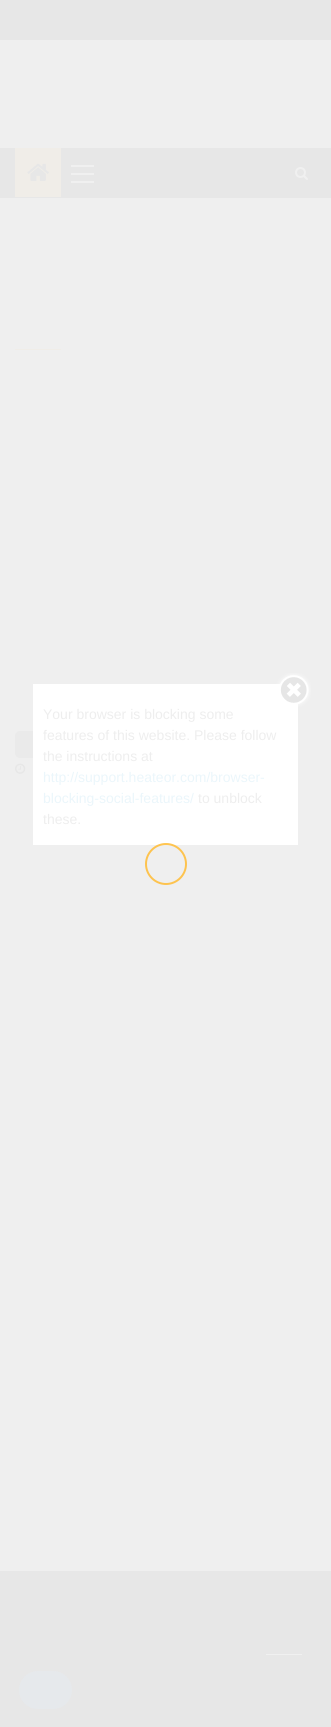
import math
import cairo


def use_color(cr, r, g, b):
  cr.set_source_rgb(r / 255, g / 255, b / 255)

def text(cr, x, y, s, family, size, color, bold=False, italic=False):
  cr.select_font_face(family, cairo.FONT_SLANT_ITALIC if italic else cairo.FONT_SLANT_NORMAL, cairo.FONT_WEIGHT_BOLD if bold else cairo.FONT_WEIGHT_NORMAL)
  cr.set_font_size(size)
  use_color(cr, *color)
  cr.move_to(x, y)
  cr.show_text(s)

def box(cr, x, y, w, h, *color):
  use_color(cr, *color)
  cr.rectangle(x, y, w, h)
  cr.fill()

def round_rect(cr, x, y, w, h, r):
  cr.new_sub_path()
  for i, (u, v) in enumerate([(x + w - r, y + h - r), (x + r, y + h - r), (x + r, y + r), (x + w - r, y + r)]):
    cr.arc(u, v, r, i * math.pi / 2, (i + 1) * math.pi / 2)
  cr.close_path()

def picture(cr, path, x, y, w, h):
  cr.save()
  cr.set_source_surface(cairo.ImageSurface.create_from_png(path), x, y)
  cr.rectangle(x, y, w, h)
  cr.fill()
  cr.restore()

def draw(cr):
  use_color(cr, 239, 239, 239)
  cr.paint()
  box(cr, 0, 0, 331, 40, 231, 231, 231)
  box(cr, 0, 148, 331, 50, 231, 231, 231)
  box(cr, 15, 148, 46, 49, 240, 237, 232)
  picture(cr, "img_01.png", 27, 163, 22, 18)
  box(cr, 71, 173, 23, 2, 240, 240, 240)
  box(cr, 71, 165, 23, 2, 240, 240, 240)
  box(cr, 71, 181, 23, 2, 240, 240, 240)
  picture(cr, "img_02.png", 295, 167, 13, 13)
  box(cr, 15, 349, 46, 1, 240, 237, 232)
  use_color(cr, 234, 234, 234)
  round_rect(cr, 15, 731, 89, 27, 5)
  cr.fill()
  picture(cr, "img_03.png", 15, 763, 11, 11)
  box(cr, 0, 1571, 331, 156, 231, 231, 231)
  box(cr, 266, 1654, 36, 1, 240, 240, 240)
  use_color(cr, 230, 233, 236)
  round_rect(cr, 19, 1671, 53, 38, 19)
  cr.fill()
  box(cr, 33, 684, 265, 161, 255, 255, 255)
  picture(cr, "img_04.png", 276, 673, 35, 34)
  cr.arc(166, 864, 20, 0, 2 * math.pi)
  cr.set_source_rgba(1, 0.749, 0.247, 0.9)
  cr.stroke()
  text(cr, 43, 719, "Your browser is blocking some", "Liberation Sans", 14, (238, 238, 238))
  text(cr, 43, 740, "features of this website. Please follow", "Liberation Sans", 14, (238, 238, 238))
  text(cr, 43, 761, "the instructions at", "Liberation Sans", 14, (238, 238, 238))
  text(cr, 43, 782, "http://support.heateor.com/browser-", "Liberation Sans", 14, (235, 246, 251))
  text(cr, 43, 803, "blocking-social-features/", "Liberation Sans", 14, (235, 246, 251))
  text(cr, 198, 803, "to unblock", "Liberation Sans", 14, (238, 238, 238))
  text(cr, 43, 824, "these.", "Liberation Sans", 14, (238, 238, 238))


surface = cairo.ImageSurface(cairo.FORMAT_RGB24, 331, 1727)
cr = cairo.Context(surface)
options = cairo.FontOptions()
options.set_hint_metrics(cairo.HINT_METRICS_OFF)
options.set_hint_style(cairo.HINT_STYLE_NONE)
cr.set_font_options(options)
cr.set_miter_limit(4)
draw(cr)
surface.write_to_png("out.png")
